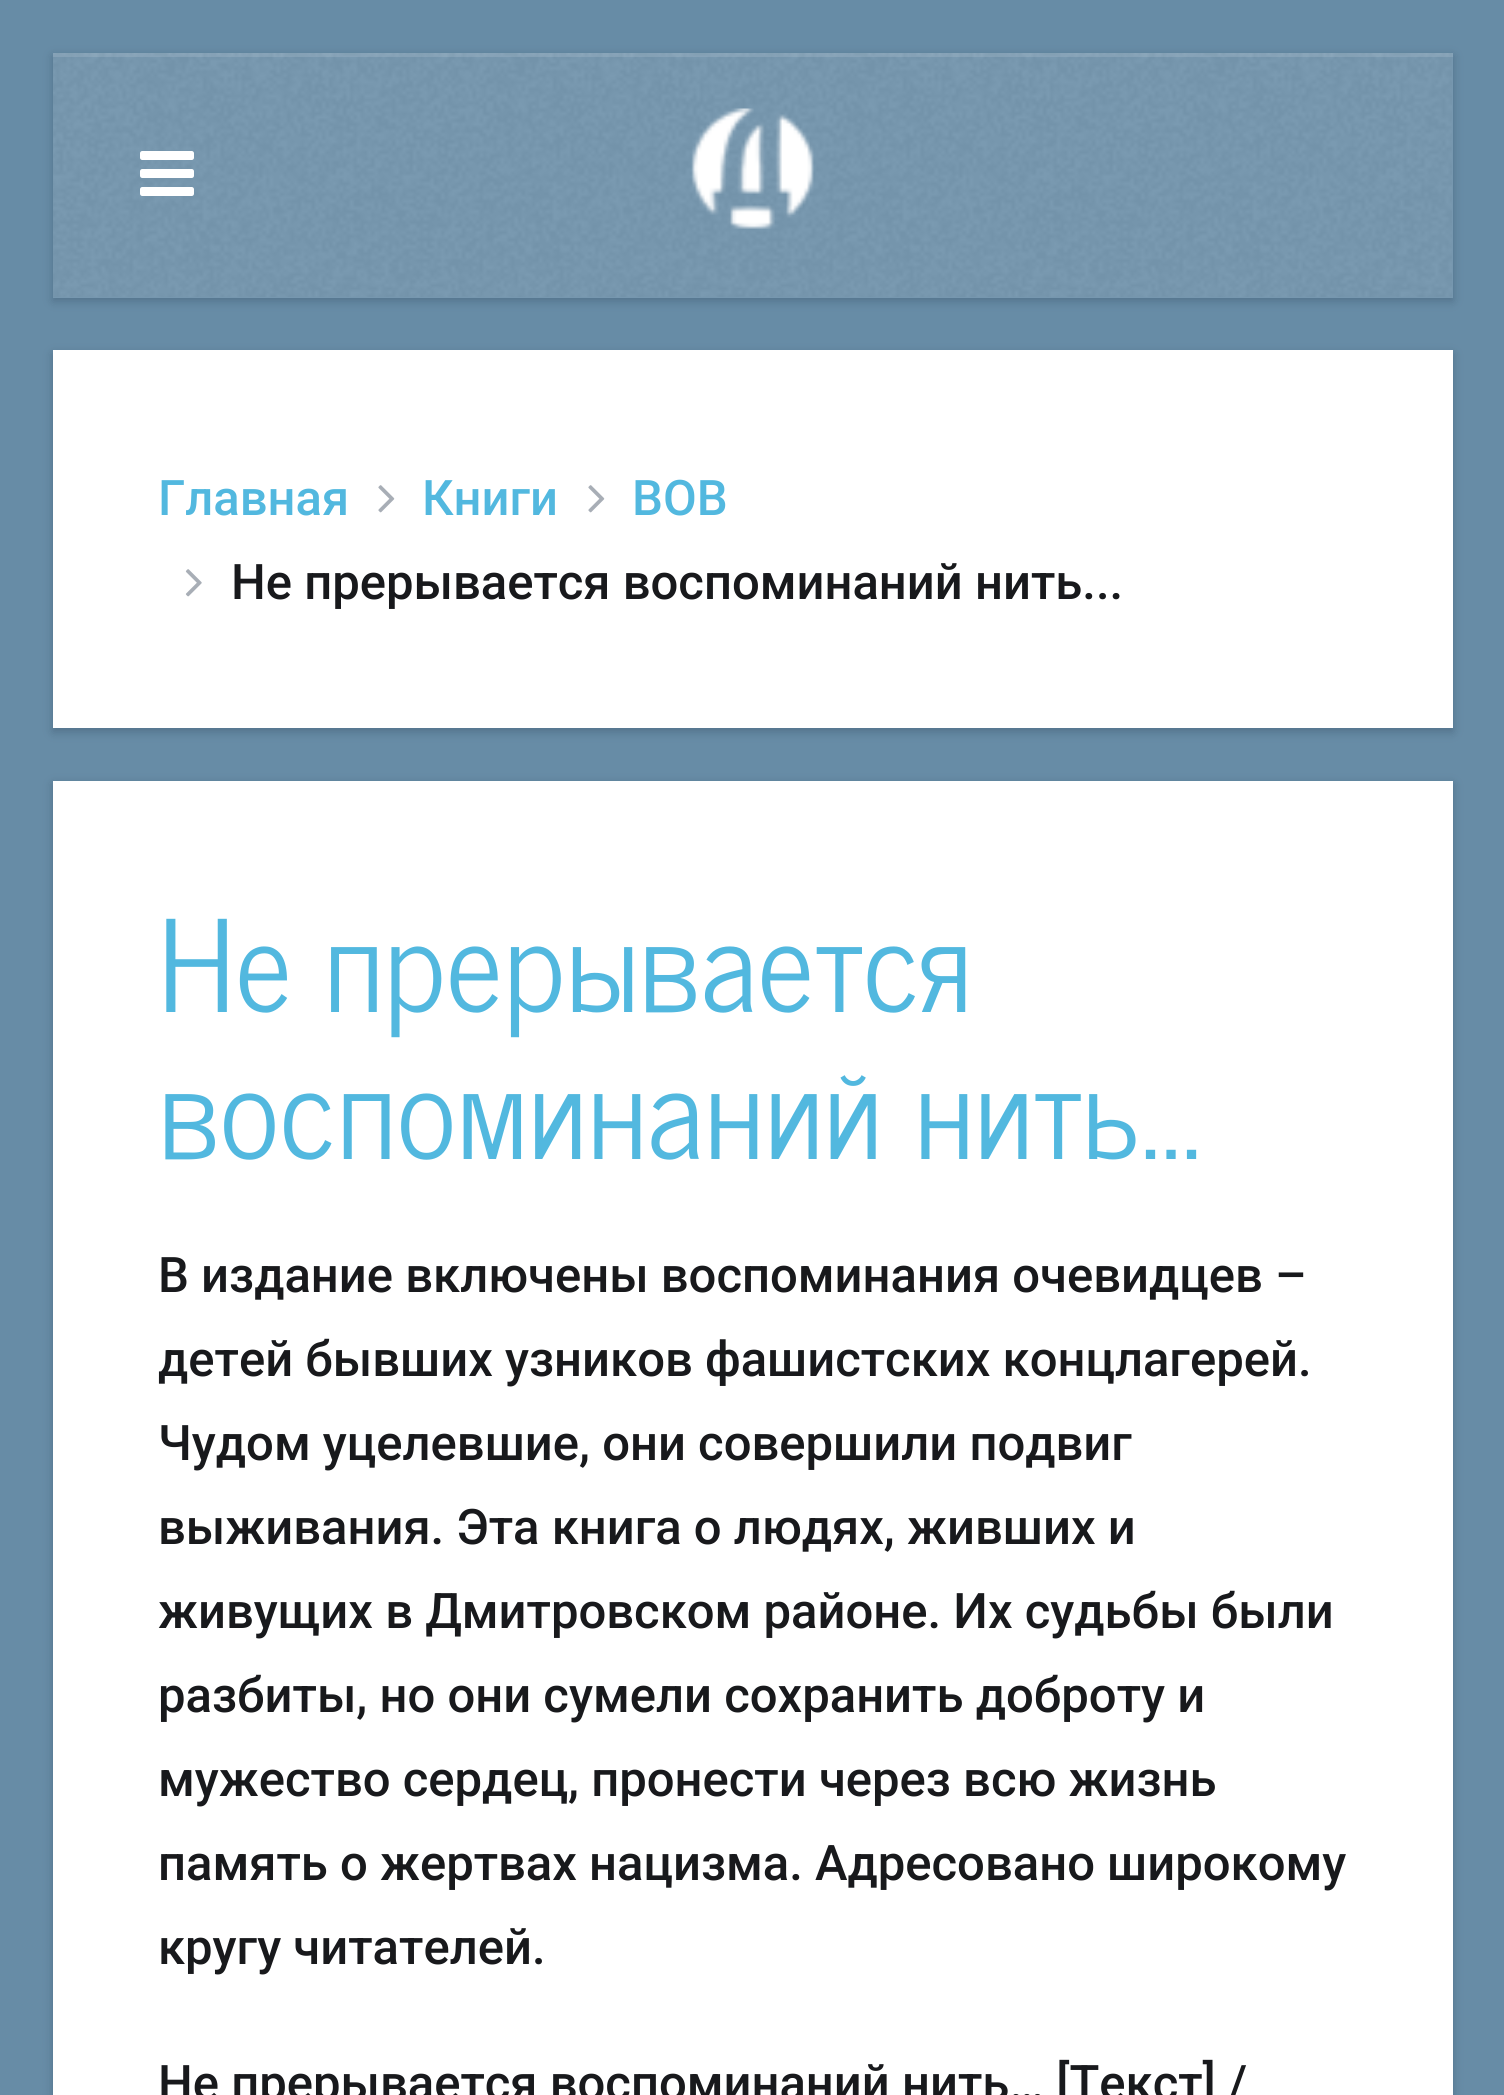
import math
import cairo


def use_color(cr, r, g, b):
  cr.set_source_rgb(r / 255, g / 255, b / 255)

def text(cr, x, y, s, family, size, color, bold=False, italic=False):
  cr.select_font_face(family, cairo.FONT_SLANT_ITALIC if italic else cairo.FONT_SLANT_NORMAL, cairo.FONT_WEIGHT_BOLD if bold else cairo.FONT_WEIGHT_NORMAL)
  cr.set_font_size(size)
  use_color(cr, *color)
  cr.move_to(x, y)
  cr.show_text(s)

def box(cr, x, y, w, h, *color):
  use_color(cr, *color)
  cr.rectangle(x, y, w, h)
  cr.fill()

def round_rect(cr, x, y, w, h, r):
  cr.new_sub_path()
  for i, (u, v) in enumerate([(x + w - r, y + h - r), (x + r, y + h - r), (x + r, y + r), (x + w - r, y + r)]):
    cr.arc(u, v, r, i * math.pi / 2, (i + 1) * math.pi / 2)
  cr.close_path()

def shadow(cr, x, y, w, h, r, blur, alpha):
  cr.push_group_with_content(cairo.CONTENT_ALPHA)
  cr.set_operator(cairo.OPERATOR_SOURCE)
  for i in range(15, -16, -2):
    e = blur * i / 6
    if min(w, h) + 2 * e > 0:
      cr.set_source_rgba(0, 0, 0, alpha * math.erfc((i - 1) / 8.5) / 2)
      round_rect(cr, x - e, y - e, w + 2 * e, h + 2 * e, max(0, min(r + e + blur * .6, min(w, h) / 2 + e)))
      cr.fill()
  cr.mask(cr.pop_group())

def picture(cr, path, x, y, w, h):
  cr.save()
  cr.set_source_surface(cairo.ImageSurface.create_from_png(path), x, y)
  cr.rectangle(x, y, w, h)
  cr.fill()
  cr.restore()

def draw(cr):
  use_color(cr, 103, 140, 166)
  cr.paint()
  cr.save()
  cr.set_fill_rule(cairo.FILL_RULE_EVEN_ODD)
  cr.new_path()
  cr.move_to(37, 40)
  cr.line_to(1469, 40)
  cr.line_to(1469, 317)
  cr.line_to(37, 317)
  cr.close_path()
  cr.move_to(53, 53)
  cr.line_to(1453, 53)
  cr.line_to(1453, 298)
  cr.line_to(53, 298)
  cr.close_path()
  cr.clip()
  use_color(cr, 30, 50, 70)
  shadow(cr, 53, 56, 1400, 245, 0, 5, 0.3)
  cr.restore()
  cr.set_source_rgba(1, 1, 1, 0.1)
  cr.rectangle(53, 53, 1400, 245)
  cr.fill()
  picture(cr, "img_01.png", 53, 53, 1399, 244)
  cr.set_source_rgba(1, 1, 1, 0.12)
  cr.rectangle(53, 53, 1400, 4)
  cr.fill()
  picture(cr, "img_02.png", 140, 151, 54, 45)
  picture(cr, "img_03.png", 691, 108, 123, 121)
  use_color(cr, 30, 50, 70)
  shadow(cr, 53, 354, 1400, 378, 0, 5, 0.3)
  box(cr, 53, 350, 1400, 378, 255, 255, 255)
  picture(cr, "img_04.png", 378, 485, 17, 28)
  picture(cr, "img_04.png", 588, 485, 17, 28)
  picture(cr, "img_05.png", 185, 569, 17, 28)
  use_color(cr, 30, 50, 70)
  shadow(cr, 53, 784, 1400, 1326, 0, 5, 0.3)
  box(cr, 53, 781, 1400, 1314, 255, 255, 255)
  text(cr, 158, 515, "Главная", "Roboto Medium", 49, (82, 184, 223))
  text(cr, 422, 515, "Книги", "Roboto Medium", 49, (82, 184, 223))
  text(cr, 632, 515, "ВОВ", "Roboto Medium", 49, (82, 184, 223))
  text(cr, 231, 599, "Не прерывается воспоминаний нить...", "Roboto Medium", 49, (24, 25, 28))
  text(cr, 158, 1012, "Не прерывается", "News Cycle", 126, (82, 184, 223))
  text(cr, 158, 1159, "воспоминаний нить...", "News Cycle", 126, (82, 184, 223))
  text(cr, 158, 1292, "В издание включены воспоминания очевидцев –", "Roboto Medium", 49, (24, 25, 28))
  text(cr, 158, 1376, "детей бывших узников фашистских концлагерей.", "Roboto Medium", 49, (24, 25, 28))
  text(cr, 158, 1460, "Чудом уцелевшие, они совершили подвиг", "Roboto Medium", 49, (24, 25, 28))
  text(cr, 158, 1544, "выживания. Эта книга о людях, живших и", "Roboto Medium", 49, (24, 25, 28))
  text(cr, 158, 1628, "живущих в Дмитровском районе. Их судьбы были", "Roboto Medium", 49, (24, 25, 28))
  text(cr, 158, 1712, "разбиты, но они сумели сохранить доброту и", "Roboto Medium", 49, (24, 25, 28))
  text(cr, 158, 1796, "мужество сердец, пронести через всю жизнь", "Roboto Medium", 49, (24, 25, 28))
  text(cr, 158, 1880, "память о жертвах нацизма. Адресовано широкому", "Roboto Medium", 49, (24, 25, 28))
  text(cr, 158, 1964, "кругу читателей.", "Roboto Medium", 49, (24, 25, 28))
  text(cr, 158, 2100, "Не прерывается воспоминаний нить… [Текст] /", "Roboto Medium", 49, (24, 25, 28))


surface = cairo.ImageSurface(cairo.FORMAT_RGB24, 1504, 2095)
cr = cairo.Context(surface)
options = cairo.FontOptions()
options.set_hint_metrics(cairo.HINT_METRICS_OFF)
options.set_hint_style(cairo.HINT_STYLE_NONE)
cr.set_font_options(options)
cr.set_miter_limit(4)
draw(cr)
surface.write_to_png("out.png")
